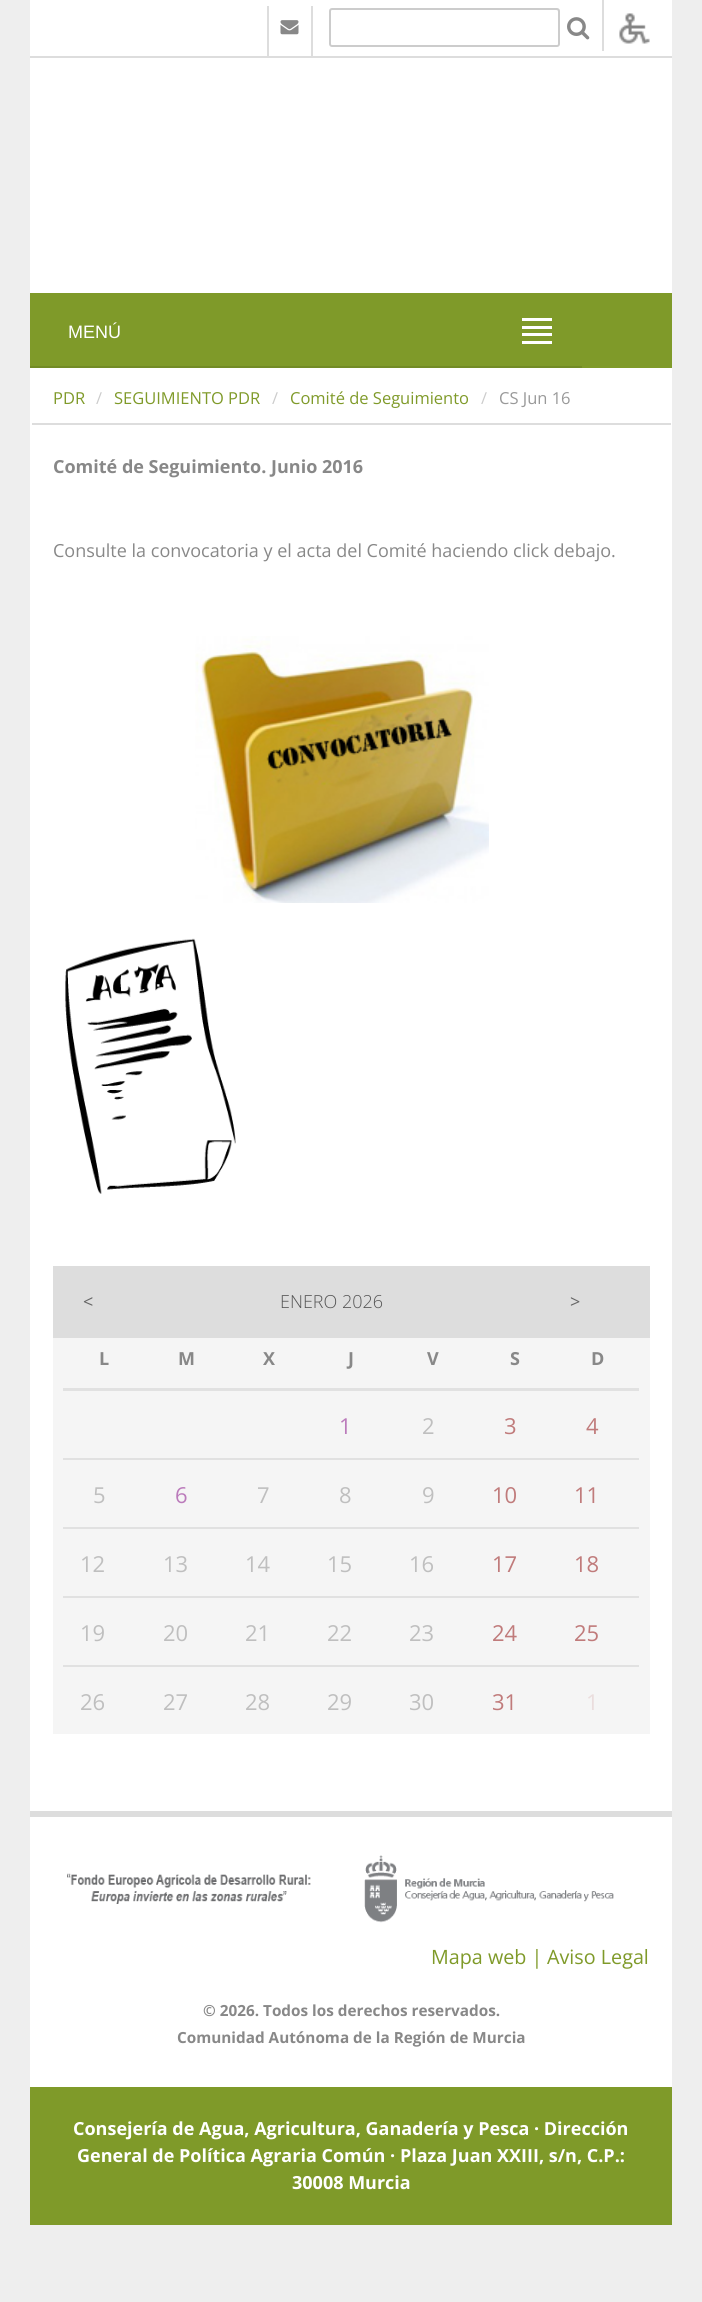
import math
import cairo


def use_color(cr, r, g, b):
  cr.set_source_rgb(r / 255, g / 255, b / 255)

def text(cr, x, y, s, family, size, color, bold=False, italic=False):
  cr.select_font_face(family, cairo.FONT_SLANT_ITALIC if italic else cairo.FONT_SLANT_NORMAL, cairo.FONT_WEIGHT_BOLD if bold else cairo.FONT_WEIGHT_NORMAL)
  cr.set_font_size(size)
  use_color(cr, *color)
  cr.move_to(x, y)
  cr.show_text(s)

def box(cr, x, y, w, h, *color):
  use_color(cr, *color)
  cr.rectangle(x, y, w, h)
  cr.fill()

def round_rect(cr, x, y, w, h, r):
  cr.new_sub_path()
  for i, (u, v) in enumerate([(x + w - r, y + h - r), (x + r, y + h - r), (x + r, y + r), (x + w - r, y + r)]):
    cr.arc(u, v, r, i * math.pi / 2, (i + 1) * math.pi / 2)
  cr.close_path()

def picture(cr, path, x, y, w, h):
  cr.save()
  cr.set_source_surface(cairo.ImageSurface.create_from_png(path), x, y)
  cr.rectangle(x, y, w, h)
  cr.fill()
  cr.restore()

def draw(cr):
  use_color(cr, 238, 238, 238)
  cr.paint()
  box(cr, 30, 0, 642, 2087, 255, 255, 255)
  box(cr, 30, 56, 642, 2, 221, 221, 221)
  box(cr, 311, 6, 2, 51, 221, 221, 221)
  box(cr, 267, 6, 2, 51, 221, 221, 221)
  picture(cr, "img_01.png", 280, 20, 19, 15)
  box(cr, 602, 0, 2, 51, 221, 221, 221)
  use_color(cr, 236, 236, 236)
  cr.new_path()
  cr.move_to(332, 10)
  cr.line_to(556, 10)
  cr.curve_to(557, 10, 558, 11, 558, 12)
  cr.line_to(558, 9)
  cr.line_to(556, 9)
  cr.line_to(332, 9)
  cr.curve_to(330, 9, 330, 11, 330, 12)
  cr.curve_to(330, 11, 331, 10, 332, 10)
  cr.close_path()
  cr.fill()
  round_rect(cr, 330, 9, 229, 37, 2)
  use_color(cr, 204, 204, 204)
  cr.stroke()
  picture(cr, "img_02.png", 567, 17, 23, 23)
  picture(cr, "img_03.png", 619, 13, 31, 31)
  box(cr, 30, 293, 642, 75, 127, 154, 41)
  box(cr, 30, 366, 552, 2, 114, 139, 37)
  box(cr, 522, 318, 30, 3, 255, 255, 255)
  box(cr, 522, 326, 30, 3, 255, 255, 255)
  box(cr, 522, 333, 30, 3, 255, 255, 255)
  box(cr, 522, 341, 30, 3, 255, 255, 255)
  box(cr, 32, 423, 639, 2, 221, 221, 221)
  picture(cr, "img_04.png", 195, 636, 294, 267)
  picture(cr, "img_05.png", 65, 938, 171, 256)
  box(cr, 53, 1266, 597, 72, 221, 221, 221)
  box(cr, 53, 1338, 597, 396, 245, 245, 245)
  box(cr, 63, 1388, 576, 3, 225, 225, 225)
  box(cr, 63, 1458, 576, 2, 225, 225, 225)
  box(cr, 63, 1527, 576, 2, 225, 225, 225)
  box(cr, 63, 1596, 576, 2, 225, 225, 225)
  box(cr, 63, 1665, 576, 2, 225, 225, 225)
  box(cr, 30, 1811, 642, 6, 221, 221, 221)
  picture(cr, "img_06.png", 67, 1855, 547, 68)
  box(cr, 30, 2087, 642, 138, 127, 154, 41)
  text(cr, 68, 338, "MENÚ", "Liberation Sans", 18, (255, 255, 255))
  text(cr, 53, 404, "PDR", "Open Sans", 16.5, (127, 154, 41))
  text(cr, 96, 404, "/", "Open Sans", 16.5, (204, 204, 204))
  text(cr, 114, 404, "SEGUIMIENTO PDR", "Open Sans", 16.5, (127, 154, 41))
  text(cr, 272, 404, "/", "Open Sans", 16.5, (204, 204, 204))
  text(cr, 290, 404, "Comité de Seguimiento", "Open Sans", 16.5, (127, 154, 41))
  text(cr, 481, 404, "/", "Open Sans", 16.5, (204, 204, 204))
  text(cr, 499, 404, "CS Jun 16", "Open Sans", 16.5, (153, 153, 153))
  text(cr, 53, 473, "Comité de Seguimiento. Junio 2016", "Open Sans", 18, (136, 136, 136), bold=True)
  text(cr, 53, 557, "Consulte la convocatoria y el acta del Comité haciendo click debajo.", "Open Sans", 18, (136, 136, 136))
  text(cr, 83, 1308, "<", "Open Sans", 18, (102, 102, 102))
  text(cr, 280, 1308, "ENERO 2026", "Open Sans Light", 18, (85, 85, 85))
  text(cr, 570, 1308, ">", "Open Sans", 18, (102, 102, 102))
  text(cr, 99, 1365, "L", "Open Sans", 18, (136, 136, 136), bold=True)
  text(cr, 178, 1365, "M", "Open Sans", 18, (136, 136, 136), bold=True)
  text(cr, 263, 1365, "X", "Open Sans", 18, (136, 136, 136), bold=True)
  text(cr, 348, 1365, "J", "Open Sans", 18, (136, 136, 136), bold=True)
  text(cr, 427, 1365, "V", "Open Sans", 18, (136, 136, 136), bold=True)
  text(cr, 510, 1365, "S", "Open Sans", 18, (136, 136, 136), bold=True)
  text(cr, 591, 1365, "D", "Open Sans", 18, (136, 136, 136), bold=True)
  text(cr, 339, 1434, "1", "Open Sans", 22, (187, 123, 187))
  text(cr, 422, 1434, "2", "Open Sans", 22, (191, 191, 191))
  text(cr, 504, 1434, "3", "Open Sans", 22, (192, 123, 123))
  text(cr, 586, 1434, "4", "Open Sans", 22, (192, 123, 123))
  text(cr, 93, 1503, "5", "Open Sans", 22, (191, 191, 191))
  text(cr, 175, 1503, "6", "Open Sans", 22, (187, 123, 187))
  text(cr, 257, 1503, "7", "Open Sans", 22, (191, 191, 191))
  text(cr, 339, 1503, "8", "Open Sans", 22, (191, 191, 191))
  text(cr, 422, 1503, "9", "Open Sans", 22, (191, 191, 191))
  text(cr, 492, 1503, "10", "Open Sans", 22, (192, 123, 123))
  text(cr, 574, 1503, "11", "Open Sans", 22, (192, 123, 123))
  text(cr, 80, 1572, "12", "Open Sans", 22, (191, 191, 191))
  text(cr, 163, 1572, "13", "Open Sans", 22, (191, 191, 191))
  text(cr, 245, 1572, "14", "Open Sans", 22, (191, 191, 191))
  text(cr, 327, 1572, "15", "Open Sans", 22, (191, 191, 191))
  text(cr, 409, 1572, "16", "Open Sans", 22, (191, 191, 191))
  text(cr, 492, 1572, "17", "Open Sans", 22, (192, 123, 123))
  text(cr, 574, 1572, "18", "Open Sans", 22, (192, 123, 123))
  text(cr, 80, 1641, "19", "Open Sans", 22, (191, 191, 191))
  text(cr, 163, 1641, "20", "Open Sans", 22, (191, 191, 191))
  text(cr, 245, 1641, "21", "Open Sans", 22, (191, 191, 191))
  text(cr, 327, 1641, "22", "Open Sans", 22, (191, 191, 191))
  text(cr, 409, 1641, "23", "Open Sans", 22, (191, 191, 191))
  text(cr, 492, 1641, "24", "Open Sans", 22, (192, 123, 123))
  text(cr, 574, 1641, "25", "Open Sans", 22, (192, 123, 123))
  text(cr, 80, 1710, "26", "Open Sans", 22, (191, 191, 191))
  text(cr, 163, 1710, "27", "Open Sans", 22, (191, 191, 191))
  text(cr, 245, 1710, "28", "Open Sans", 22, (191, 191, 191))
  text(cr, 327, 1710, "29", "Open Sans", 22, (191, 191, 191))
  text(cr, 409, 1710, "30", "Open Sans", 22, (191, 191, 191))
  text(cr, 492, 1710, "31", "Open Sans", 22, (192, 123, 123))
  text(cr, 586, 1710, "1", "Open Sans", 22, (234, 221, 221))
  text(cr, 431, 1964, "Mapa web |", "Open Sans", 19.75, (127, 154, 41))
  text(cr, 547, 1964, "Aviso Legal", "Open Sans", 19.75, (127, 154, 41))
  text(cr, 203, 2016, "© 2026. Todos los derechos reservados.", "Open Sans", 15.3, (136, 136, 136), bold=True)
  text(cr, 177, 2043, "Comunidad Autónoma de la Región de Murcia", "Open Sans", 15.3, (136, 136, 136), bold=True)
  text(cr, 73, 2135, "Consejería de Agua, Agricultura, Ganadería y Pesca · Dirección", "Open Sans", 18, (255, 255, 255), bold=True)
  text(cr, 77, 2162, "General de Política Agraria Común · Plaza Juan XXIII, s/n, C.P.:", "Open Sans", 18, (255, 255, 255), bold=True)
  text(cr, 292, 2189, "30008 Murcia", "Open Sans", 18, (255, 255, 255), bold=True)


surface = cairo.ImageSurface(cairo.FORMAT_RGB24, 702, 2302)
cr = cairo.Context(surface)
options = cairo.FontOptions()
options.set_hint_metrics(cairo.HINT_METRICS_OFF)
options.set_hint_style(cairo.HINT_STYLE_NONE)
cr.set_font_options(options)
cr.set_miter_limit(4)
draw(cr)
surface.write_to_png("out.png")
